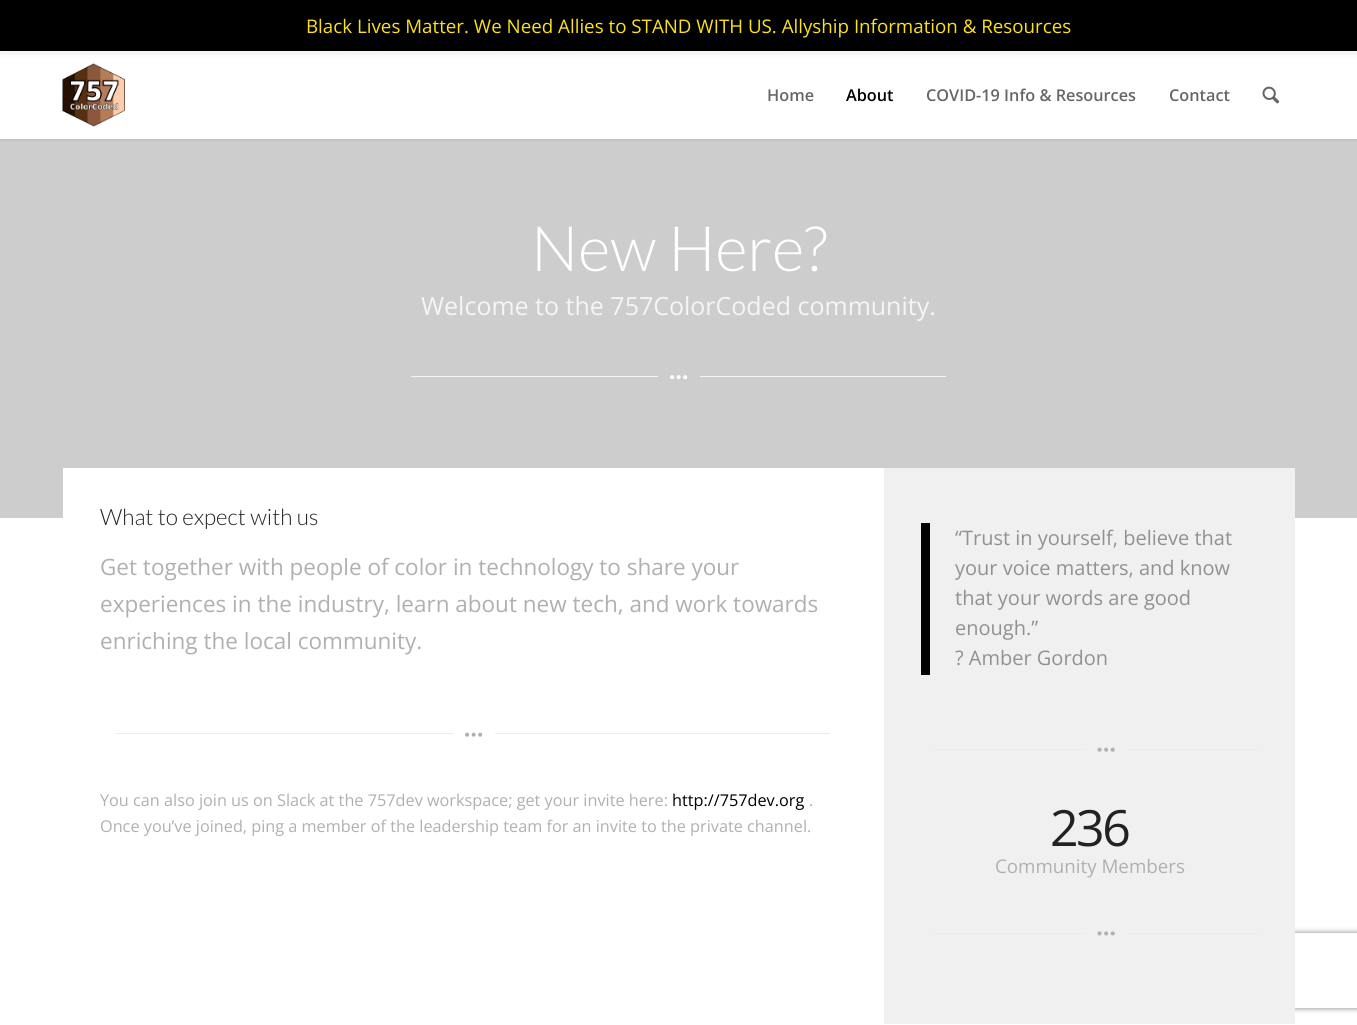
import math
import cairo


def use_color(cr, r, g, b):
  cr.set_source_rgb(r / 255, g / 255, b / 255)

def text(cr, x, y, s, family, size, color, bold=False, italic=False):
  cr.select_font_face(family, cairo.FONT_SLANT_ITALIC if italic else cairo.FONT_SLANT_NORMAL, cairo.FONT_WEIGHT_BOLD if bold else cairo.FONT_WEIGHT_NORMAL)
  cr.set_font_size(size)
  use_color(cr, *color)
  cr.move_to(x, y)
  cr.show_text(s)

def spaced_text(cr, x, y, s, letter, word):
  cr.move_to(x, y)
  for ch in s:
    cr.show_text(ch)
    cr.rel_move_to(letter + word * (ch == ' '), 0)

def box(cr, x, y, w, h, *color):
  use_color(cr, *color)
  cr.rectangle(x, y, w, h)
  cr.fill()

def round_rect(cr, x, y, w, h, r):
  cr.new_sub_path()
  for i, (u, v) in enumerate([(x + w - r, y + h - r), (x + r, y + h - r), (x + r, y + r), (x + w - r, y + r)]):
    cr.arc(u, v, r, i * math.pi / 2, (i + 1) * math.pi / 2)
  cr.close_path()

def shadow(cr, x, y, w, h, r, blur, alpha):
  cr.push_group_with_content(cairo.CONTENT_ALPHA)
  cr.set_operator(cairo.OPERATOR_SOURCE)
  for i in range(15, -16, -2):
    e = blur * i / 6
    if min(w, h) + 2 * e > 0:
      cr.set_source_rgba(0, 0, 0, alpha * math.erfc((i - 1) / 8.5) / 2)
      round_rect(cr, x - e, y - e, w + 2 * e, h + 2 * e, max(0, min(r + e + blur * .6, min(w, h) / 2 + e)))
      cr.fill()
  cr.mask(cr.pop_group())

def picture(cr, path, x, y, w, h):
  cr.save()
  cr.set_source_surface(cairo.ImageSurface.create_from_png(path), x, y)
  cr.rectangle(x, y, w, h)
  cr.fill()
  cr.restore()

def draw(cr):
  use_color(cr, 255, 255, 255)
  cr.paint()
  box(cr, 0, 139, 1357, 379, 205, 205, 205)
  use_color(cr, 0, 0, 0)
  shadow(cr, -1, 50, 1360, 90, 0, 1, 0.1)
  box(cr, 0, 51, 1357, 88, 255, 255, 255)
  picture(cr, "img_01.png", 62, 63, 63, 64)
  use_color(cr, 0, 0, 0)
  shadow(cr, 0, 4, 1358, 51, 0, 2.5, 0.05)
  box(cr, 0, 0, 1357, 51, 0, 0, 0)
  picture(cr, "img_02.png", 1262, 86, 18, 18)
  box(cr, 411, 376, 247, 1, 243, 243, 243)
  picture(cr, "img_03.png", 670, 375, 18, 5)
  box(cr, 700, 376, 246, 1, 243, 243, 243)
  box(cr, 63, 468, 821, 50, 255, 255, 255)
  box(cr, 116, 733, 337, 1, 235, 235, 235)
  picture(cr, "img_04.png", 465, 732, 18, 5)
  box(cr, 495, 733, 335, 1, 235, 235, 235)
  cr.save()
  cr.set_fill_rule(cairo.FILL_RULE_EVEN_ODD)
  cr.new_path()
  cr.move_to(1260, 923)
  cr.line_to(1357, 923)
  cr.line_to(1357, 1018)
  cr.line_to(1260, 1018)
  cr.close_path()
  cr.move_to(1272.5, 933)
  cr.line_to(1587.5, 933)
  cr.curve_to(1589, 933, 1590, 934, 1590, 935.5)
  cr.line_to(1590, 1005.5)
  cr.curve_to(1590, 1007, 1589, 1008, 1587.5, 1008)
  cr.line_to(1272.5, 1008)
  cr.curve_to(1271, 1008, 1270, 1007, 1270, 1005.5)
  cr.line_to(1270, 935.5)
  cr.curve_to(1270, 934, 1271, 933, 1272.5, 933)
  cr.close_path()
  cr.clip()
  use_color(cr, 128, 128, 128)
  shadow(cr, 1270, 933, 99, 75, 2.5, 3, 1)
  cr.restore()
  box(cr, 884, 468, 411, 556, 240, 240, 240)
  box(cr, 921, 523, 9, 152, 0, 0, 0)
  box(cr, 934, 749, 151, 1, 235, 235, 235)
  picture(cr, "img_05.png", 1097, 747, 18, 5)
  box(cr, 1128, 749, 130, 1, 235, 235, 235)
  box(cr, 934, 933, 151, 1, 235, 235, 235)
  picture(cr, "img_06.png", 1097, 931, 18, 5)
  box(cr, 1128, 933, 130, 1, 235, 235, 235)
  text(cr, 306, 33, "Black Lives Matter. We Need Allies to STAND WITH US. Allyship Information & Resources", "Open Sans", 18.75, (252, 226, 27))
  text(cr, 767, 101, "Home", "Open Sans SemiBold", 16.25, (102, 102, 102))
  text(cr, 846, 101, "About", "Open Sans SemiBold", 16.25, (0, 0, 0))
  text(cr, 926, 101, "COVID-19 Info & Resources", "Open Sans SemiBold", 16.25, (102, 102, 102))
  text(cr, 1169, 101, "Contact", "Open Sans SemiBold", 16.25, (102, 102, 102))
  text(cr, 531, 271, "New Here?", "Lato Light", 62.5, (255, 255, 255))
  text(cr, 421, 315, "Welcome to the 757ColorCoded community.", "Open Sans", 25, (245, 245, 245))
  text(cr, 100, 525, "What to expect with us", "Lato Light", 22.5, (34, 34, 34))
  text(cr, 100, 575, "Get together with people of color in technology to share your", "Open Sans", 22.5, (176, 176, 176))
  text(cr, 100, 612, "experiences in the industry, learn about new tech, and work towards", "Open Sans", 22.5, (176, 176, 176))
  text(cr, 100, 649, "enriching the local community.", "Open Sans", 22.5, (176, 176, 176))
  text(cr, 100, 806, "You can also join us on Slack at the 757dev workspace; get your invite here:", "Open Sans", 16.25, (176, 176, 176))
  text(cr, 672, 806, "http://757dev.org", "Open Sans", 16.25, (0, 0, 0))
  text(cr, 809, 806, ".", "Open Sans", 16.25, (176, 176, 176))
  text(cr, 100, 832, "Once you’ve joined, ping a member of the leadership team for an invite to the private channel.", "Open Sans", 16.25, (176, 176, 176))
  text(cr, 955, 545, "“Trust in yourself, believe that", "Open Sans", 20, (145, 145, 145))
  text(cr, 955, 575, "your voice matters, and know", "Open Sans", 20, (145, 145, 145))
  text(cr, 955, 605, "that your words are good", "Open Sans", 20, (145, 145, 145))
  text(cr, 955, 635, "enough.”", "Open Sans", 20, (145, 145, 145))
  text(cr, 955, 665, "? Amber Gordon", "Open Sans", 20, (145, 145, 145))
  cr.set_font_size(50)
  use_color(cr, 34, 34, 34)
  spaced_text(cr, 1050, 846, "236", -2.5, 0)
  text(cr, 995, 873, "Community Members", "Open Sans", 18.75, (176, 176, 176))


surface = cairo.ImageSurface(cairo.FORMAT_RGB24, 1357, 1025)
cr = cairo.Context(surface)
options = cairo.FontOptions()
options.set_hint_metrics(cairo.HINT_METRICS_OFF)
options.set_hint_style(cairo.HINT_STYLE_NONE)
cr.set_font_options(options)
cr.set_miter_limit(4)
draw(cr)
surface.write_to_png("out.png")
